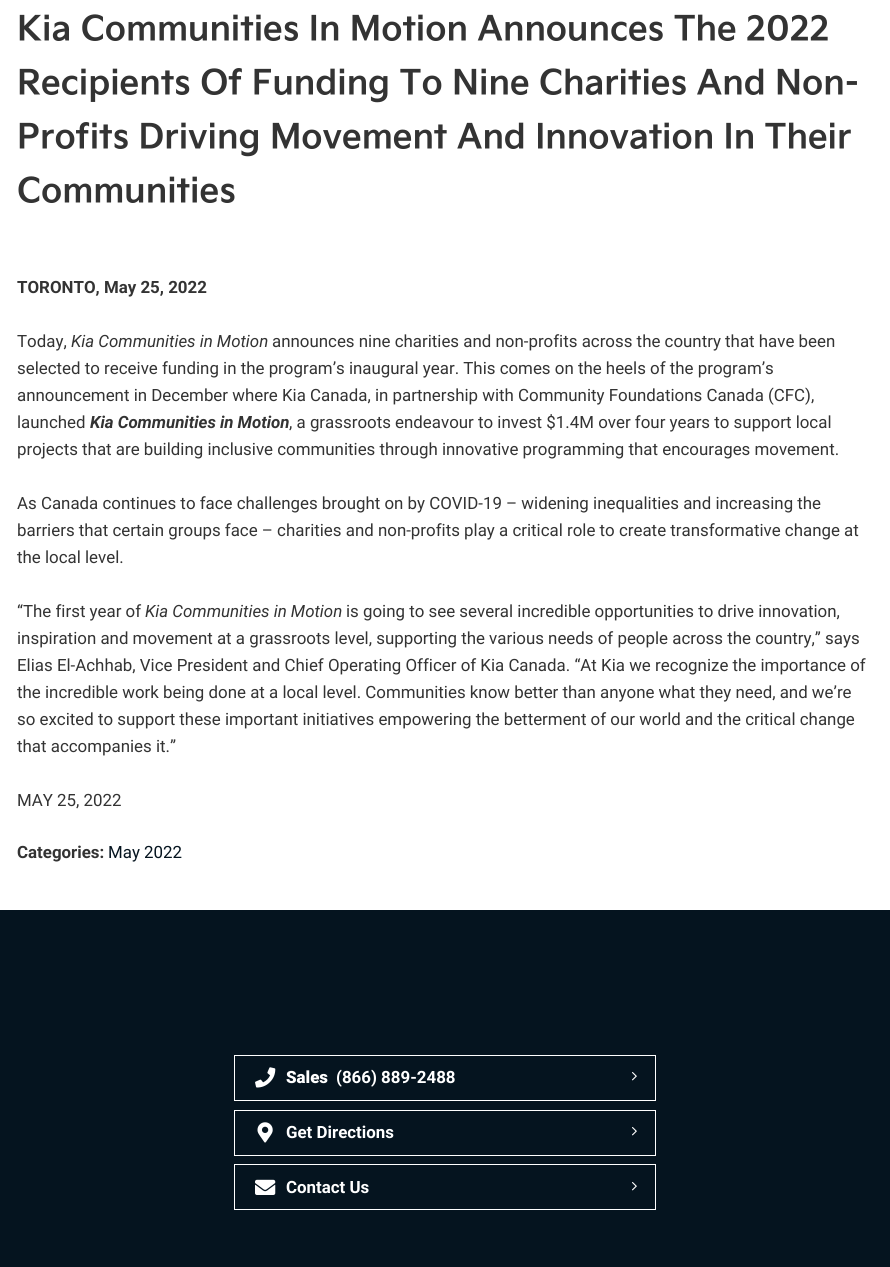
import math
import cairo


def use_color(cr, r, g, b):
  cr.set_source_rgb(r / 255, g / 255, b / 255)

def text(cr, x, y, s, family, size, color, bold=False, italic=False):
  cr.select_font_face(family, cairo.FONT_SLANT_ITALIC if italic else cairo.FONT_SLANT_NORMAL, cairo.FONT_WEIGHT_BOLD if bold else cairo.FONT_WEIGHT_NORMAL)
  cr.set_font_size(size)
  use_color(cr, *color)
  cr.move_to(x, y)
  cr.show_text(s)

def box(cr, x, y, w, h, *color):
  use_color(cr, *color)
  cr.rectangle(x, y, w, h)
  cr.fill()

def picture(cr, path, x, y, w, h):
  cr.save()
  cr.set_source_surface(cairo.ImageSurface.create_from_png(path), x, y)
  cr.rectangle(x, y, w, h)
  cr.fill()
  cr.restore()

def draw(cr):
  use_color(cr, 255, 255, 255)
  cr.paint()
  box(cr, 0, 910, 890, 357, 5, 20, 31)
  cr.rectangle(234.5, 1055.5, 421, 45)
  use_color(cr, 255, 255, 255)
  cr.set_line_width(1)
  cr.stroke()
  picture(cr, "img_01.png", 255, 1067, 21, 21)
  picture(cr, "img_02.png", 632, 1072, 5, 9)
  cr.rectangle(234.5, 1110.5, 421, 45)
  cr.stroke()
  picture(cr, "img_03.png", 257, 1122, 16, 21)
  picture(cr, "img_02.png", 632, 1127, 5, 9)
  cr.rectangle(234.5, 1164.5, 421, 45)
  cr.stroke()
  picture(cr, "img_04.png", 255, 1179, 21, 16)
  picture(cr, "img_02.png", 632, 1182, 5, 9)
  text(cr, 17, 40, "Kia Communities In Motion Announces The 2022", "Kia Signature", 33.75, (51, 51, 51), bold=True)
  text(cr, 17, 94, "Recipients Of Funding To Nine Charities And Non-", "Kia Signature", 33.75, (51, 51, 51), bold=True)
  text(cr, 17, 148, "Profits Driving Movement And Innovation In Their", "Kia Signature", 33.75, (51, 51, 51), bold=True)
  text(cr, 17, 202, "Communities", "Kia Signature", 33.75, (51, 51, 51), bold=True)
  text(cr, 17, 293, "TORONTO, May 25, 2022", "Roboto", 16.88, (51, 51, 51), bold=True)
  text(cr, 17, 347, "Today,", "Roboto", 16.88, (51, 51, 51))
  text(cr, 71, 347, "Kia Communities in Motion", "Roboto", 16.88, (51, 51, 51), italic=True)
  text(cr, 272, 347, "announces nine charities and non-profits across the country that have been", "Roboto", 16.88, (51, 51, 51))
  text(cr, 17, 374, "selected to receive funding in the program’s inaugural year. This comes on the heels of the program’s", "Roboto", 16.88, (51, 51, 51))
  text(cr, 17, 401, "announcement in December where Kia Canada, in partnership with Community Foundations Canada (CFC),", "Roboto", 16.88, (51, 51, 51))
  text(cr, 17, 428, "launched", "Roboto", 16.88, (51, 51, 51))
  text(cr, 90, 428, "Kia Communities in Motion", "Roboto", 16.88, (51, 51, 51), bold=True, italic=True)
  text(cr, 289, 428, ", a grassroots endeavour to invest $1.4M over four years to support local", "Roboto", 16.88, (51, 51, 51))
  text(cr, 17, 455, "projects that are building inclusive communities through innovative programming that encourages movement.", "Roboto", 16.88, (51, 51, 51))
  text(cr, 17, 509, "As Canada continues to face challenges brought on by COVID-19 – widening inequalities and increasing the", "Roboto", 16.88, (51, 51, 51))
  text(cr, 17, 536, "barriers that certain groups face – charities and non-profits play a critical role to create transformative change at", "Roboto", 16.88, (51, 51, 51))
  text(cr, 17, 563, "the local level.", "Roboto", 16.88, (51, 51, 51))
  text(cr, 17, 617, "“The first year of", "Roboto", 16.88, (51, 51, 51))
  text(cr, 145, 617, "Kia Communities in Motion", "Roboto", 16.88, (51, 51, 51), italic=True)
  text(cr, 346, 617, "is going to see several incredible opportunities to drive innovation,", "Roboto", 16.88, (51, 51, 51))
  text(cr, 17, 644, "inspiration and movement at a grassroots level, supporting the various needs of people across the country,” says", "Roboto", 16.88, (51, 51, 51))
  text(cr, 17, 671, "Elias El-Achhab, Vice President and Chief Operating Officer of Kia Canada. “At Kia we recognize the importance of", "Roboto", 16.88, (51, 51, 51))
  text(cr, 17, 698, "the incredible work being done at a local level. Communities know better than anyone what they need, and we’re", "Roboto", 16.88, (51, 51, 51))
  text(cr, 17, 725, "so excited to support these important initiatives empowering the betterment of our world and the critical change", "Roboto", 16.88, (51, 51, 51))
  text(cr, 17, 752, "that accompanies it.”", "Roboto", 16.88, (51, 51, 51))
  text(cr, 17, 806, "MAY 25, 2022", "Roboto", 16.88, (51, 51, 51))
  text(cr, 17, 858, "Categories:", "Roboto", 16.88, (51, 51, 51), bold=True)
  text(cr, 108, 858, "May 2022", "Roboto", 16.88, (5, 20, 31))
  text(cr, 286, 1083, "Sales", "Roboto Black", 16.88, (255, 255, 255))
  text(cr, 336, 1083, "(866) 889-2488", "Roboto", 16.88, (255, 255, 255), bold=True)
  text(cr, 286, 1138, "Get Directions", "Roboto", 16.88, (255, 255, 255), bold=True)
  text(cr, 286, 1193, "Contact Us", "Roboto", 16.88, (255, 255, 255), bold=True)


surface = cairo.ImageSurface(cairo.FORMAT_RGB24, 890, 1267)
cr = cairo.Context(surface)
options = cairo.FontOptions()
options.set_hint_metrics(cairo.HINT_METRICS_OFF)
options.set_hint_style(cairo.HINT_STYLE_NONE)
cr.set_font_options(options)
cr.set_miter_limit(4)
draw(cr)
surface.write_to_png("out.png")
